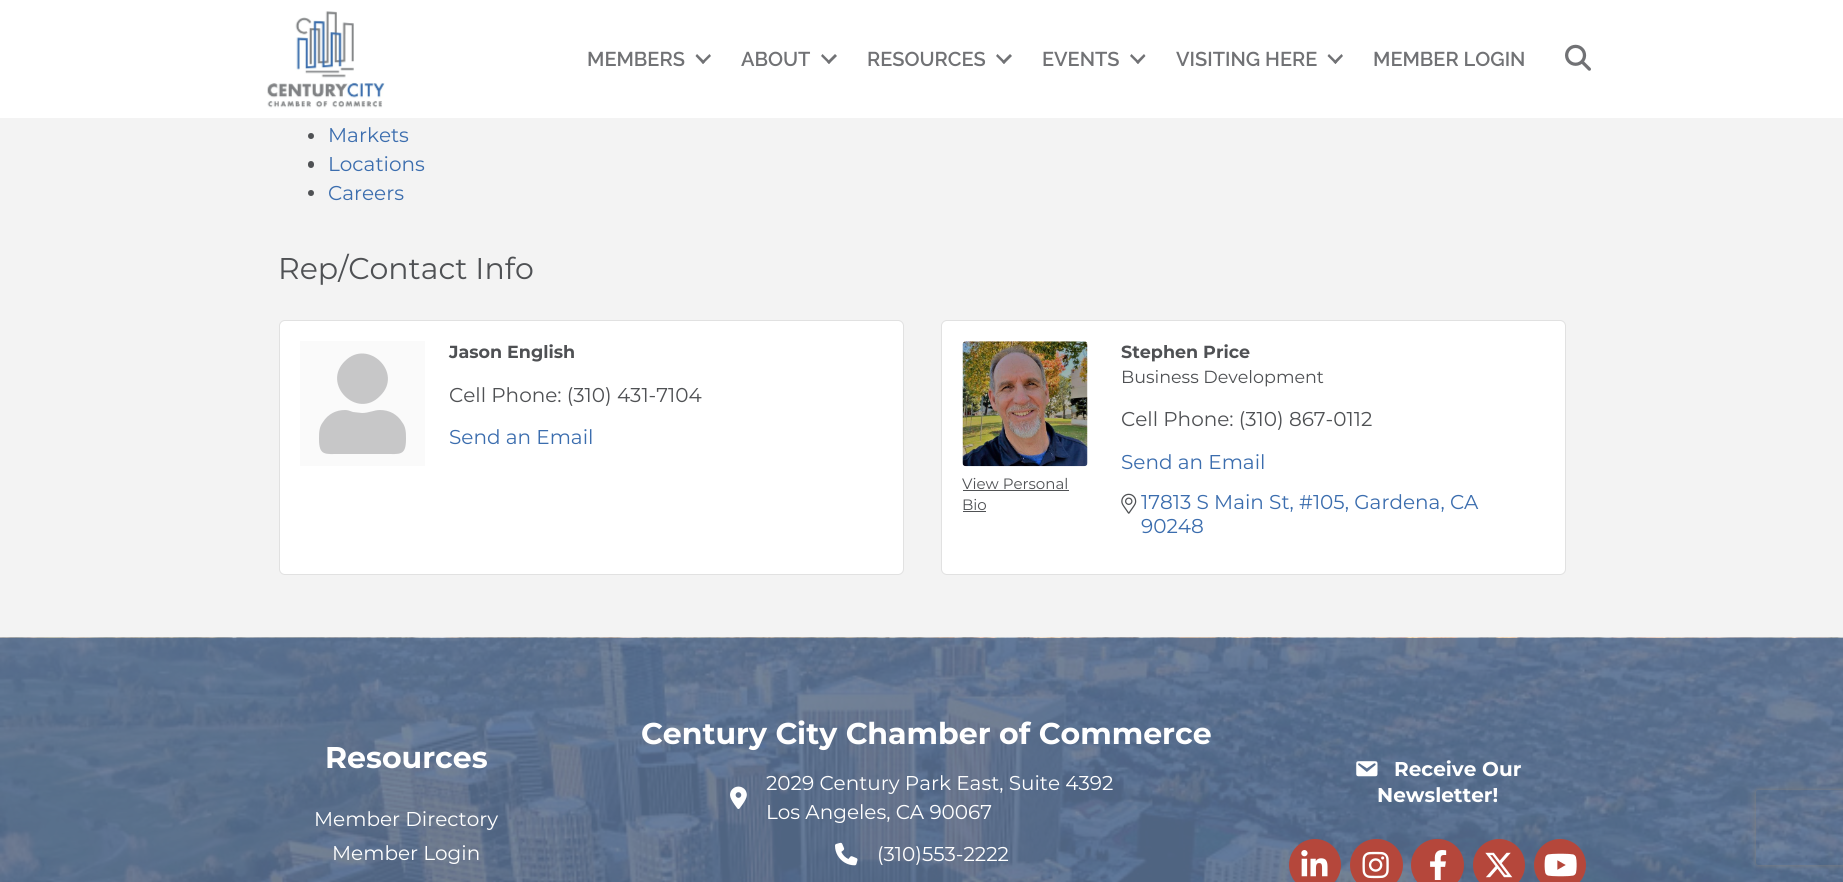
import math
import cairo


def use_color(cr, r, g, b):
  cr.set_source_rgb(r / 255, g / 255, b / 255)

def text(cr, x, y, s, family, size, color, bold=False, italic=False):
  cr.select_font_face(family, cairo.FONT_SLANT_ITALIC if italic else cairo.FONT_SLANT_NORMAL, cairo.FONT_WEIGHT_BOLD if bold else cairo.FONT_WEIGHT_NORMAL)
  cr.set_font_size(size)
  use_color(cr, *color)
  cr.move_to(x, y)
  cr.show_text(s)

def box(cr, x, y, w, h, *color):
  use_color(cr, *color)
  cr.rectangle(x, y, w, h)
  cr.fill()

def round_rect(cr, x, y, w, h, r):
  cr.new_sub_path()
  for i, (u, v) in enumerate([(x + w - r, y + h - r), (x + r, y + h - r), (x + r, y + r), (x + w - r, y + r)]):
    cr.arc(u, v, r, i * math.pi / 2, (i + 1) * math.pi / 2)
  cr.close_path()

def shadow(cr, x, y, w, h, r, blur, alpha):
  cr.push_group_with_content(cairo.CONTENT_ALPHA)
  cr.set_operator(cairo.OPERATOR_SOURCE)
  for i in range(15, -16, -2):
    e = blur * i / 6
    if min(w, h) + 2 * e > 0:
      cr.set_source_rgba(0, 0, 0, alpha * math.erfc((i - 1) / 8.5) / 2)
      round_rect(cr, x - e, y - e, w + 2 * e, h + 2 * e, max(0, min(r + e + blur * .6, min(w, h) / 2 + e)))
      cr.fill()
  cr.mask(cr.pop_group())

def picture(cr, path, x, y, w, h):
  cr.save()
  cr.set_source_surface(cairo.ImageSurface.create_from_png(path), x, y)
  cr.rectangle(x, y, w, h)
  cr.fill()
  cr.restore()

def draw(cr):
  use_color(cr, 243, 243, 243)
  cr.paint()
  box(cr, 0, 0, 1843, 118, 255, 255, 255)
  picture(cr, "img_01.png", 267, 11, 118, 97)
  use_color(cr, 113, 114, 117)
  cr.new_path()
  cr.move_to(709.5, 54)
  cr.line_to(711, 56)
  cr.line_to(703, 64)
  cr.line_to(701.5, 62)
  cr.close_path()
  cr.fill()
  cr.new_path()
  cr.move_to(697, 54)
  cr.line_to(705, 62)
  cr.line_to(703, 64)
  cr.line_to(695.5, 56)
  cr.close_path()
  cr.fill()
  cr.new_path()
  cr.move_to(835, 54)
  cr.line_to(837, 56)
  cr.line_to(829, 64)
  cr.line_to(827, 62)
  cr.close_path()
  cr.fill()
  cr.new_path()
  cr.move_to(822.5, 54)
  cr.line_to(830.5, 62)
  cr.line_to(829, 64)
  cr.line_to(821, 56)
  cr.close_path()
  cr.fill()
  cr.new_path()
  cr.move_to(1010, 54)
  cr.line_to(1012, 56)
  cr.line_to(1004, 64)
  cr.line_to(1002, 62)
  cr.close_path()
  cr.fill()
  cr.new_path()
  cr.move_to(997.5, 54)
  cr.line_to(1005.5, 62)
  cr.line_to(1004, 64)
  cr.line_to(996, 56)
  cr.close_path()
  cr.fill()
  cr.new_path()
  cr.move_to(1144, 54)
  cr.line_to(1145.5, 56)
  cr.line_to(1138, 64)
  cr.line_to(1136, 62)
  cr.close_path()
  cr.fill()
  cr.new_path()
  cr.move_to(1131.5, 54)
  cr.line_to(1139.5, 62)
  cr.line_to(1138, 64)
  cr.line_to(1130, 56)
  cr.close_path()
  cr.fill()
  cr.new_path()
  cr.move_to(1341.5, 54)
  cr.line_to(1343, 56)
  cr.line_to(1335.5, 64)
  cr.line_to(1333.5, 62)
  cr.close_path()
  cr.fill()
  cr.new_path()
  cr.move_to(1329, 54)
  cr.line_to(1337, 62)
  cr.line_to(1335.5, 64)
  cr.line_to(1327.5, 56)
  cr.close_path()
  cr.fill()
  picture(cr, "img_02.png", 1565, 44, 26, 27)
  use_color(cr, 79, 81, 84)
  cr.arc(311, 136, 3, 0, 2 * math.pi)
  cr.fill()
  round_rect(cr, 308, 161, 6, 7, 3)
  cr.fill()
  cr.arc(311, 193, 3, 0, 2 * math.pi)
  cr.fill()
  use_color(cr, 255, 255, 255)
  round_rect(cr, 279, 320, 625, 255, 6)
  cr.fill()
  round_rect(cr, 279.5, 320.5, 624, 254, 5.5)
  cr.set_source_rgba(0, 0, 0, 0.12)
  cr.set_line_width(1)
  cr.stroke()
  box(cr, 300, 341, 125, 125, 250, 250, 250)
  use_color(cr, 199, 199, 200)
  cr.new_path()
  cr.move_to(380, 396)
  cr.curve_to(357, 420, 321, 384, 345, 361)
  cr.curve_to(368, 338, 404, 373, 380, 396)
  cr.close_path()
  cr.move_to(380, 410)
  cr.curve_to(389, 410, 397, 414, 402, 422)
  cr.curve_to(406, 427, 406, 433, 406, 439)
  cr.curve_to(406, 456, 400, 454, 385, 454)
  cr.line_to(340, 454)
  cr.curve_to(325, 454, 319, 456, 319, 439)
  cr.curve_to(319, 433, 319, 427, 323, 422)
  cr.curve_to(328, 414, 336, 410, 345, 410)
  cr.curve_to(348, 410, 350, 411, 353, 412)
  cr.line_to(362, 413)
  cr.curve_to(369, 413, 374, 410, 380, 410)
  cr.close_path()
  cr.fill()
  use_color(cr, 255, 255, 255)
  round_rect(cr, 941, 320, 625, 255, 6)
  cr.fill()
  round_rect(cr, 941.5, 320.5, 624, 254, 5.5)
  cr.set_source_rgba(0, 0, 0, 0.12)
  cr.stroke()
  picture(cr, "img_03.png", 962, 341, 126, 126)
  box(cr, 963, 490, 106, 1, 79, 81, 84)
  box(cr, 963, 511, 23, 1, 79, 81, 84)
  picture(cr, "img_04.png", 1121, 493, 16, 21)
  picture(cr, "img_05.png", 0, 637, 1843, 245)
  picture(cr, "img_06.png", 730, 786, 17, 23)
  picture(cr, "img_07.png", 835, 842, 23, 24)
  picture(cr, "img_08.png", 1356, 761, 22, 16)
  use_color(cr, 181, 71, 59)
  cr.arc(1315, 865, 26, 0, 2 * math.pi)
  cr.fill()
  picture(cr, "img_09.png", 1301, 850, 27, 27)
  round_rect(cr, 1350, 839, 53, 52, 26)
  cr.fill()
  picture(cr, "img_10.png", 1362, 851, 27, 28)
  round_rect(cr, 1411, 839, 53, 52, 26)
  cr.fill()
  picture(cr, "img_11.png", 1430, 850, 17, 30)
  cr.arc(1499, 865, 26, 0, 2 * math.pi)
  cr.fill()
  picture(cr, "img_12.png", 1485, 852, 28, 26)
  cr.arc(1560, 865, 26, 0, 2 * math.pi)
  cr.fill()
  picture(cr, "img_13.png", 1544, 853, 33, 24)
  cr.save()
  cr.set_fill_rule(cairo.FILL_RULE_EVEN_ODD)
  cr.new_path()
  cr.move_to(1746, 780)
  cr.line_to(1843, 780)
  cr.line_to(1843, 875)
  cr.line_to(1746, 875)
  cr.close_path()
  cr.move_to(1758.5, 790)
  cr.line_to(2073.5, 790)
  cr.curve_to(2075, 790, 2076, 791, 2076, 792.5)
  cr.line_to(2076, 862.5)
  cr.curve_to(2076, 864, 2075, 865, 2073.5, 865)
  cr.line_to(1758.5, 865)
  cr.curve_to(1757, 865, 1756, 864, 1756, 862.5)
  cr.line_to(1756, 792.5)
  cr.curve_to(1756, 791, 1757, 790, 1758.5, 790)
  cr.close_path()
  cr.clip()
  use_color(cr, 128, 128, 128)
  shadow(cr, 1756, 790, 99, 75, 2.5, 3, 1)
  cr.restore()
  text(cr, 587, 66, "MEMBERS", "Raleway SemiBold", 20, (113, 114, 117))
  text(cr, 741, 66, "ABOUT", "Raleway SemiBold", 20, (113, 114, 117))
  text(cr, 867, 66, "RESOURCES", "Raleway SemiBold", 20, (113, 114, 117))
  text(cr, 1042, 66, "EVENTS", "Raleway SemiBold", 20, (113, 114, 117))
  text(cr, 1176, 66, "VISITING HERE", "Raleway SemiBold", 20, (113, 114, 117))
  text(cr, 1373, 66, "MEMBER LOGIN", "Raleway SemiBold", 20, (113, 114, 117))
  text(cr, 328, 142, "Markets", "Montserrat", 20, (59, 109, 174))
  text(cr, 328, 171, "Locations", "Montserrat", 20, (59, 109, 174))
  text(cr, 328, 200, "Careers", "Montserrat", 20, (59, 109, 174))
  text(cr, 278, 279, "Rep/Contact Info", "Montserrat", 30, (79, 81, 84))
  text(cr, 449, 358, "Jason English", "Montserrat", 17.5, (79, 81, 84), bold=True)
  text(cr, 449, 402, "Cell Phone: (310) 431-7104", "Montserrat", 20, (79, 81, 84))
  text(cr, 449, 444, "Send an Email", "Montserrat", 20, (59, 109, 174))
  text(cr, 962, 489, "View Personal", "Montserrat", 15, (79, 81, 84))
  text(cr, 962, 510, "Bio", "Montserrat", 15, (79, 81, 84))
  text(cr, 1121, 358, "Stephen Price", "Montserrat", 17.5, (79, 81, 84), bold=True)
  text(cr, 1121, 383, "Business Development", "Montserrat", 17.5, (79, 81, 84))
  text(cr, 1121, 426, "Cell Phone: (310) 867-0112", "Montserrat", 20, (79, 81, 84))
  text(cr, 1121, 469, "Send an Email", "Montserrat", 20, (59, 109, 174))
  text(cr, 1141, 509, "17813 S Main St, #105, Gardena, CA", "Montserrat", 20, (59, 109, 174))
  text(cr, 1141, 533, "90248", "Montserrat", 20, (59, 109, 174))
  text(cr, 325, 768, "Resources", "Montserrat", 30, (255, 255, 255), bold=True)
  text(cr, 314, 826, "Member Directory", "Montserrat", 20, (255, 255, 255))
  text(cr, 332, 860, "Member Login", "Montserrat", 20, (255, 255, 255))
  text(cr, 641, 744, "Century City Chamber of Commerce", "Montserrat", 30, (255, 255, 255), bold=True)
  text(cr, 766, 790, "2029 Century Park East, Suite 4392", "Montserrat", 20, (255, 255, 255))
  text(cr, 766, 819, "Los Angeles, CA 90067", "Montserrat", 20, (255, 255, 255))
  text(cr, 877, 861, "(310)553-2222", "Montserrat", 20, (255, 255, 255))
  text(cr, 1394, 776, "Receive Our", "Montserrat", 20, (255, 255, 255), bold=True)
  text(cr, 1377, 802, "Newsletter!", "Montserrat", 20, (255, 255, 255), bold=True)


surface = cairo.ImageSurface(cairo.FORMAT_RGB24, 1843, 882)
cr = cairo.Context(surface)
options = cairo.FontOptions()
options.set_hint_metrics(cairo.HINT_METRICS_OFF)
options.set_hint_style(cairo.HINT_STYLE_NONE)
cr.set_font_options(options)
cr.set_miter_limit(4)
draw(cr)
surface.write_to_png("out.png")
